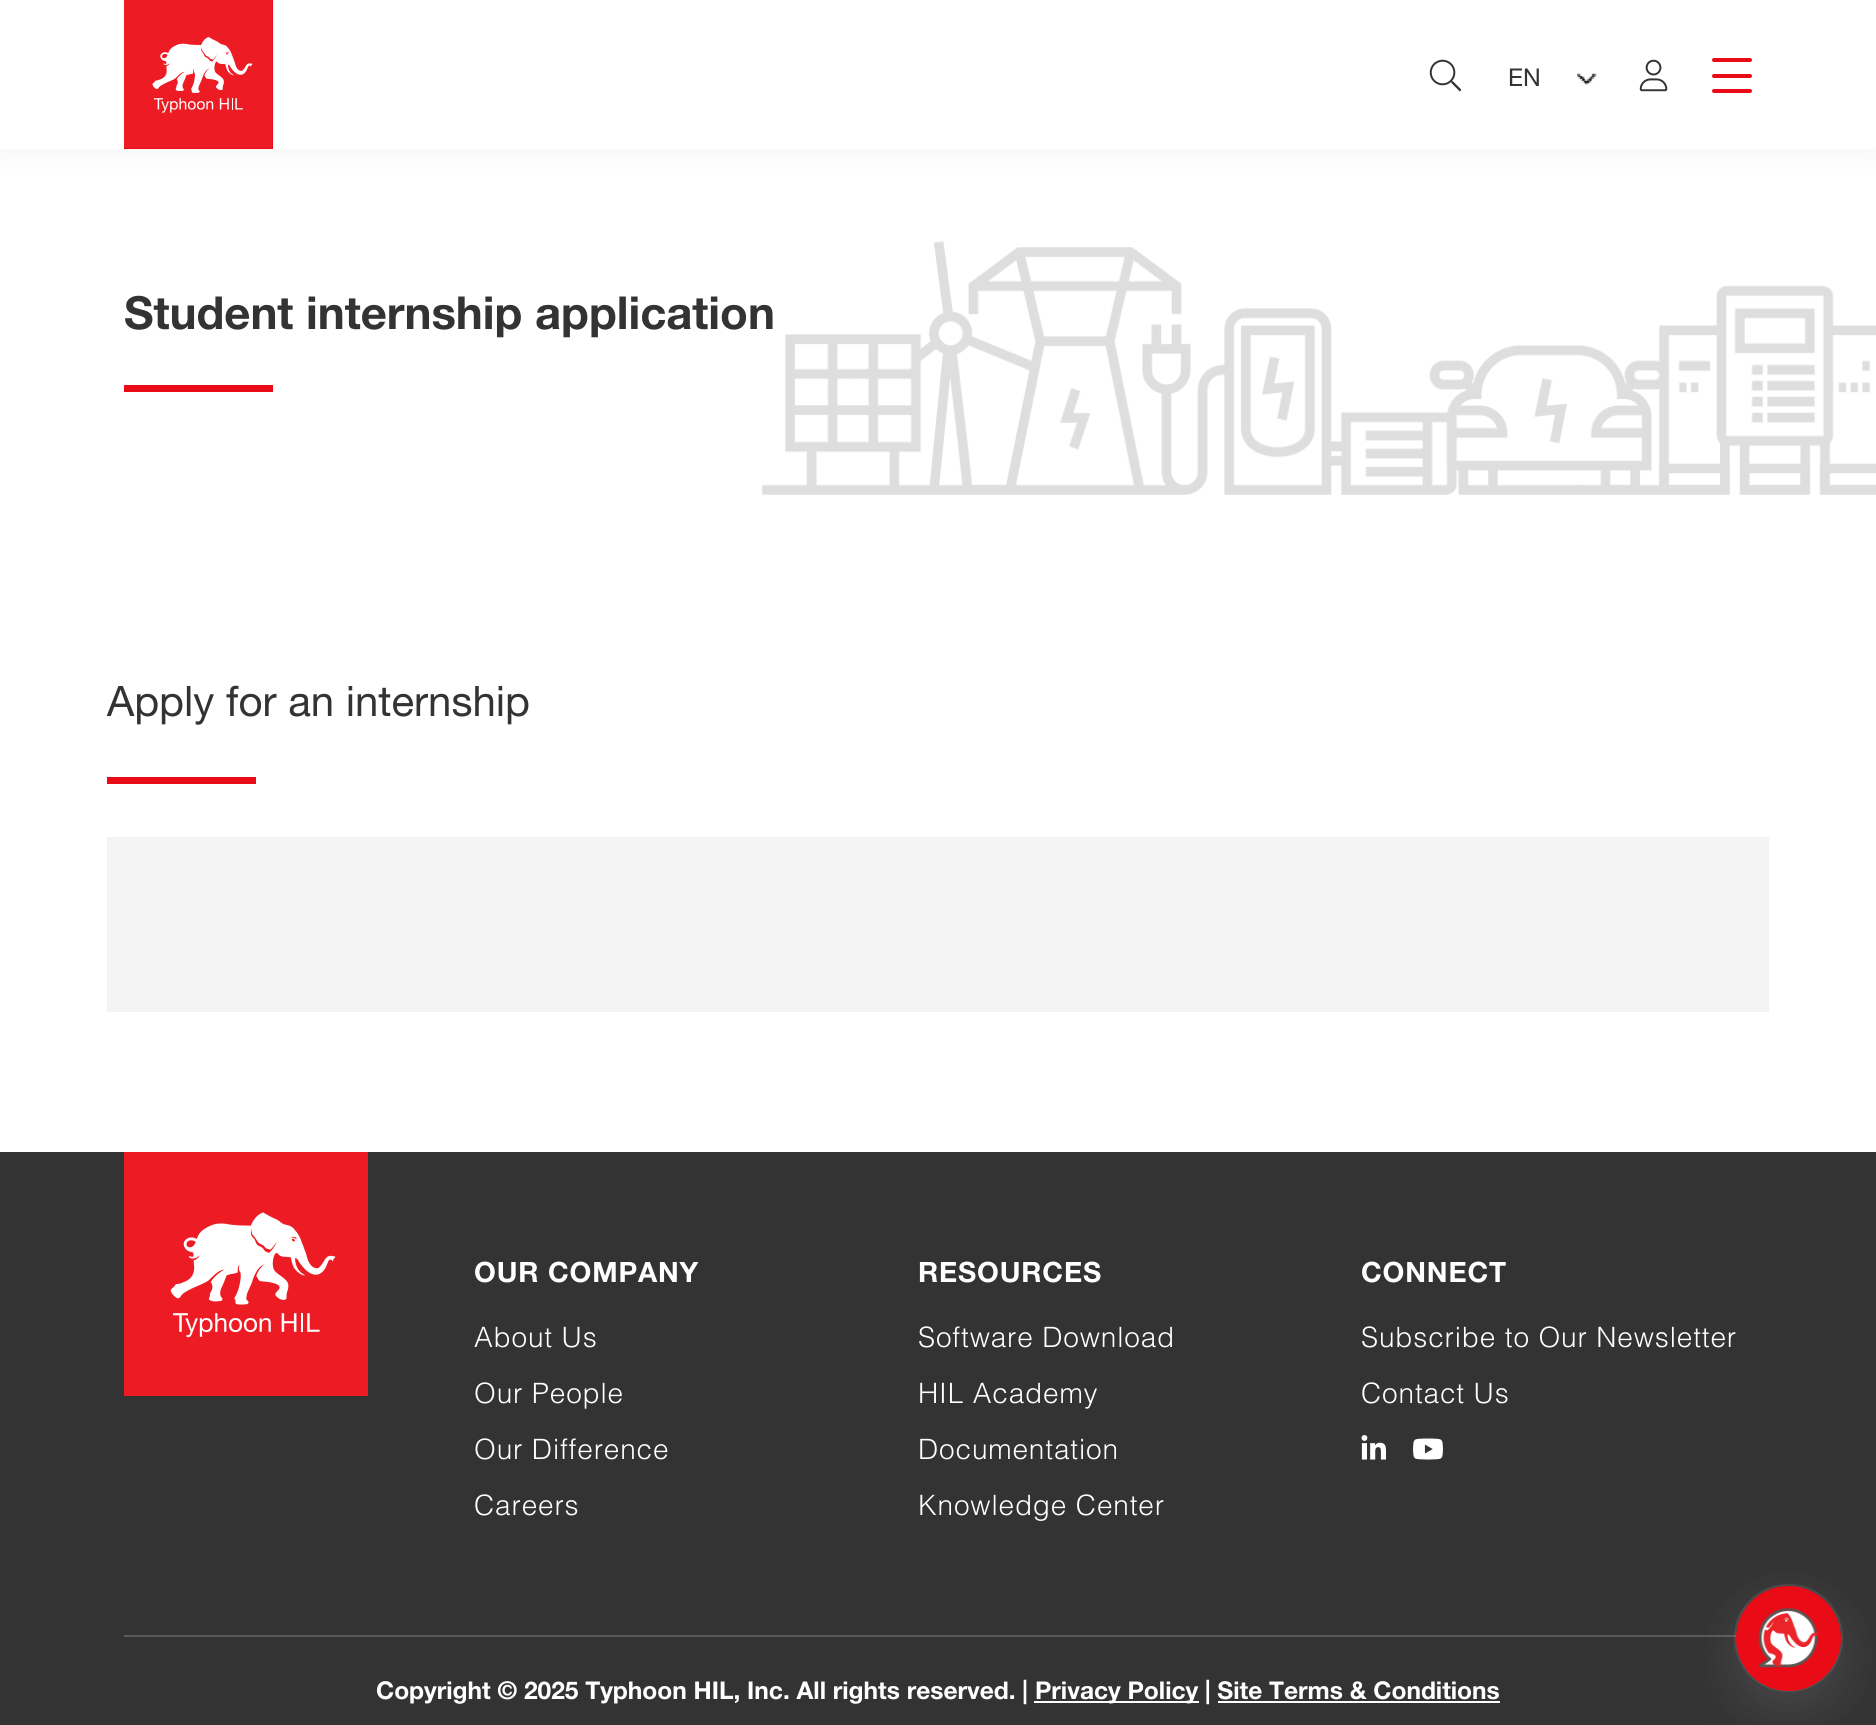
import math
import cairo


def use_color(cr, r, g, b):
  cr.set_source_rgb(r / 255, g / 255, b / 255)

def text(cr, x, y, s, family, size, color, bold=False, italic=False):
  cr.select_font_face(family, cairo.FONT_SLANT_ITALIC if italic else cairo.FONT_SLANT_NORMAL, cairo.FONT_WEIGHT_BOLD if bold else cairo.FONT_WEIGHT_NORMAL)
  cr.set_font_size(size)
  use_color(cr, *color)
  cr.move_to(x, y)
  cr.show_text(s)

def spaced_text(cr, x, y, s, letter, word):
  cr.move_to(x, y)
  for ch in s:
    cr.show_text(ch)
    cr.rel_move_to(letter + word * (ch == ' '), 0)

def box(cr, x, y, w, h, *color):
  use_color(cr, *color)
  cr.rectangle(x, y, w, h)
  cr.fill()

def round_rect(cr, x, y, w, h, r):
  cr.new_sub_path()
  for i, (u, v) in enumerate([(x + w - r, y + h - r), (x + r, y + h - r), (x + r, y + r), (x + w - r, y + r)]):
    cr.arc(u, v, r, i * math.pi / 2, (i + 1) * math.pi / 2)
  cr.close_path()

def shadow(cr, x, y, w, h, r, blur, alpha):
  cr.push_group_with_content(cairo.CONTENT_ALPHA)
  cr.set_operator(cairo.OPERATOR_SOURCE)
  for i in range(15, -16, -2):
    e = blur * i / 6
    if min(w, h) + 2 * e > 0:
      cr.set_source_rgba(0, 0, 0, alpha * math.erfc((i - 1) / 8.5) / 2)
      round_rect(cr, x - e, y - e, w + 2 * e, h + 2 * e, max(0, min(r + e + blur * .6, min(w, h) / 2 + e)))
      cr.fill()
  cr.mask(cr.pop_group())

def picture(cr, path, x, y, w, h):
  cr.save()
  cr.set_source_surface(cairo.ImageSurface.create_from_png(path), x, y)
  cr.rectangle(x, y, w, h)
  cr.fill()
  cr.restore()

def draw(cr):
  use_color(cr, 255, 255, 255)
  cr.paint()
  use_color(cr, 0, 0, 0)
  shadow(cr, 0, 2, 1876, 149, 0, 17.5, 0.05)
  box(cr, 0, 0, 1876, 149, 255, 255, 255)
  box(cr, 124, 0, 149, 149, 233, 12, 23)
  picture(cr, "img_01.png", 124, 0, 148, 148)
  picture(cr, "img_02.png", 1429, 59, 33, 33)
  picture(cr, "img_03.png", 1577, 73, 20, 12)
  picture(cr, "img_04.png", 1639, 59, 29, 33)
  round_rect(cr, 1712, 58, 40, 4, 2)
  cr.fill()
  round_rect(cr, 1712, 74, 40, 4, 2)
  cr.fill()
  round_rect(cr, 1712, 89, 40, 4, 2)
  cr.fill()
  picture(cr, "img_05.png", 762, 241, 1114, 254)
  box(cr, 124, 385, 149, 7, 233, 12, 23)
  box(cr, 107, 777, 149, 7, 233, 12, 23)
  box(cr, 107, 837, 1662, 175, 243, 243, 243)
  box(cr, 0, 1152, 1876, 573, 51, 51, 51)
  picture(cr, "img_06.png", 124, 1152, 244, 244)
  picture(cr, "img_07.png", 1361, 1435, 25, 25)
  picture(cr, "img_08.png", 1413, 1438, 30, 22)
  box(cr, 124, 1635, 1613, 2, 88, 89, 91)
  box(cr, 1034, 1701, 165, 2, 255, 255, 255)
  box(cr, 1218, 1701, 282, 2, 255, 255, 255)
  round_rect(cr, 1735, 1585, 107, 106, 53)
  cr.set_source_rgba(0.588, 0.588, 0.588, 0.2)
  cr.stroke()
  use_color(cr, 150, 150, 150)
  shadow(cr, 1736, 1603, 105, 105, 52.5, 26, 0.2)
  use_color(cr, 233, 12, 23)
  cr.arc(1788.5, 1638.5, 52.5, 0, 2 * math.pi)
  cr.fill()
  picture(cr, "img_09.png", 1758, 1608, 61, 60)
  text(cr, 1508, 86, "EN", "Helvetica Neue", 24.5, (51, 51, 51))
  text(cr, 124, 329, "Student internship application", "Helvetica Neue", 45.5, (51, 51, 51), bold=True)
  text(cr, 107, 716, "Apply for an internship", "Helvetica Neue", 42, (51, 51, 51))
  cr.select_font_face("Helvetica Neue", cairo.FONT_SLANT_NORMAL, cairo.FONT_WEIGHT_BOLD)
  cr.set_font_size(28)
  use_color(cr, 255, 255, 255)
  spaced_text(cr, 474, 1282, "OUR COMPANY", 0.85, 0)
  cr.select_font_face("Helvetica Light")
  spaced_text(cr, 474, 1347, "About Us", 0.85, 0)
  spaced_text(cr, 474, 1403, "Our People", 0.85, 0)
  spaced_text(cr, 474, 1459, "Our Difference", 0.85, 0)
  spaced_text(cr, 474, 1515, "Careers", 0.85, 0)
  cr.select_font_face("Helvetica Neue", cairo.FONT_SLANT_NORMAL, cairo.FONT_WEIGHT_BOLD)
  spaced_text(cr, 918, 1282, "RESOURCES", 0.85, 0)
  cr.select_font_face("Helvetica Light")
  spaced_text(cr, 918, 1347, "Software Download", 0.85, 0)
  spaced_text(cr, 918, 1403, "HIL Academy", 0.85, 0)
  spaced_text(cr, 918, 1459, "Documentation", 0.85, 0)
  spaced_text(cr, 918, 1515, "Knowledge Center", 0.85, 0)
  cr.select_font_face("Helvetica Neue", cairo.FONT_SLANT_NORMAL, cairo.FONT_WEIGHT_BOLD)
  spaced_text(cr, 1361, 1282, "CONNECT", 0.85, 0)
  cr.select_font_face("Helvetica Light")
  spaced_text(cr, 1361, 1347, "Subscribe to Our Newsletter", 0.85, 0)
  spaced_text(cr, 1361, 1403, "Contact Us", 0.85, 0)
  text(cr, 376, 1699, "Copyright © 2025 Typhoon HIL, Inc. All rights reserved. |", "Helvetica Neue", 24.5, (255, 255, 255), bold=True)
  text(cr, 1035, 1699, "Privacy Policy | Site Terms & Conditions", "Helvetica Neue", 24.5, (255, 255, 255), bold=True)


surface = cairo.ImageSurface(cairo.FORMAT_RGB24, 1876, 1725)
cr = cairo.Context(surface)
options = cairo.FontOptions()
options.set_hint_metrics(cairo.HINT_METRICS_OFF)
options.set_hint_style(cairo.HINT_STYLE_NONE)
cr.set_font_options(options)
cr.set_miter_limit(4)
draw(cr)
surface.write_to_png("out.png")
